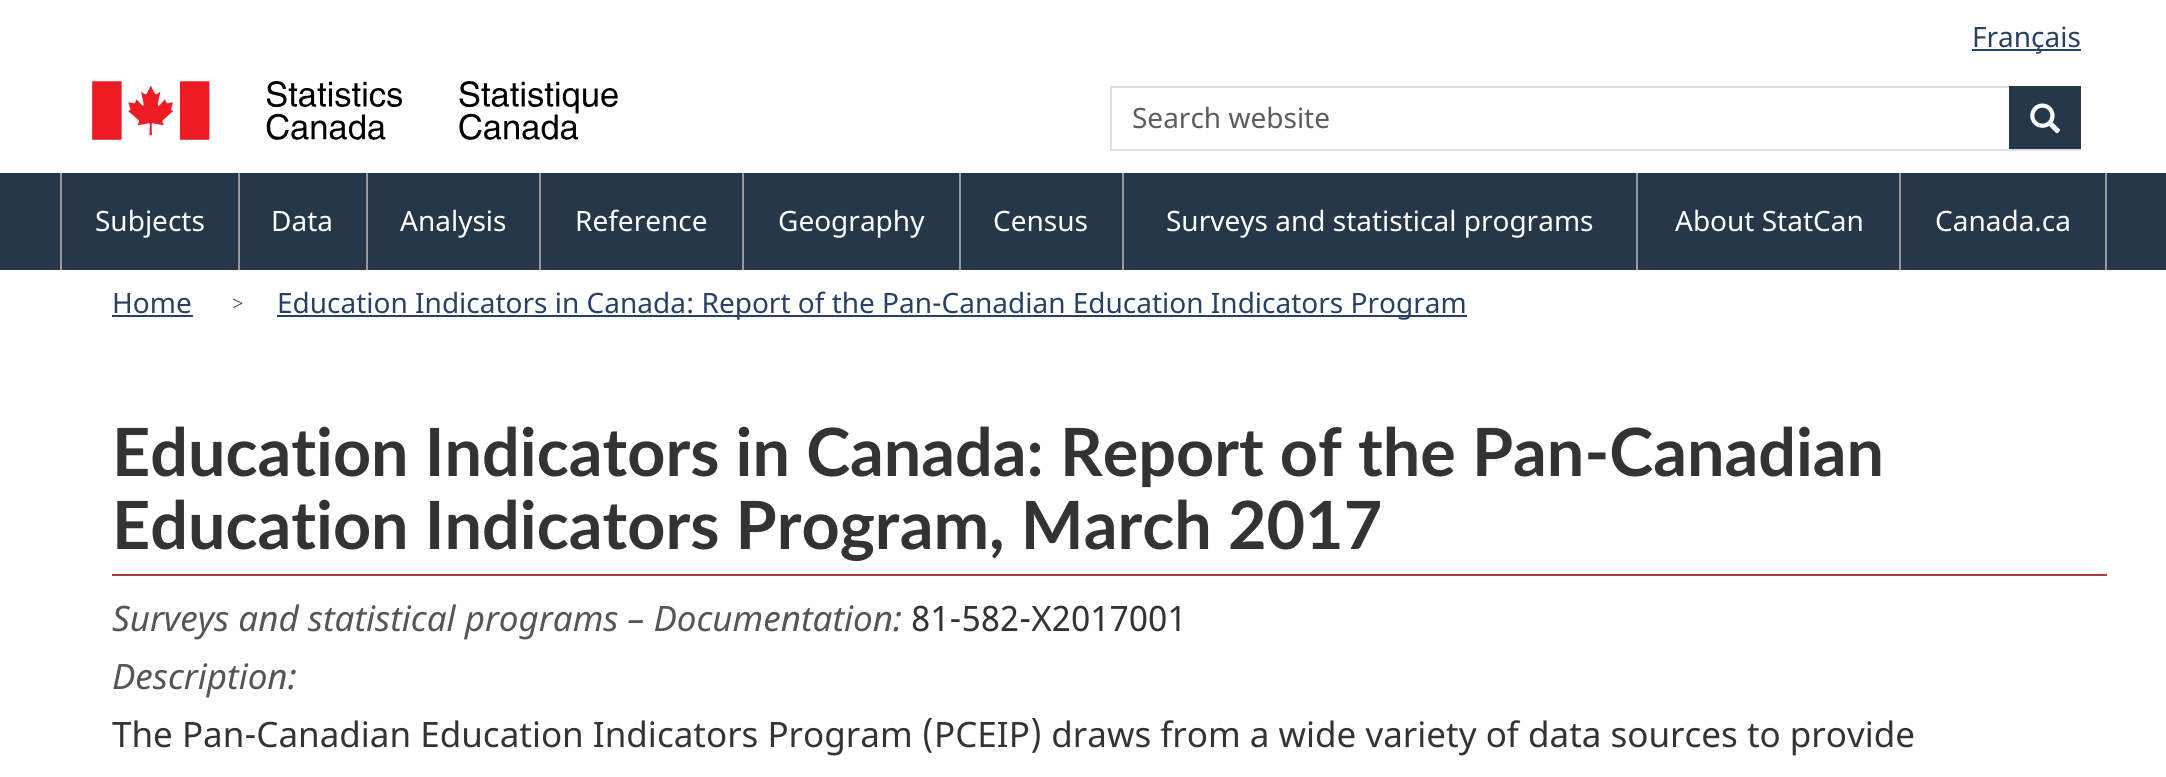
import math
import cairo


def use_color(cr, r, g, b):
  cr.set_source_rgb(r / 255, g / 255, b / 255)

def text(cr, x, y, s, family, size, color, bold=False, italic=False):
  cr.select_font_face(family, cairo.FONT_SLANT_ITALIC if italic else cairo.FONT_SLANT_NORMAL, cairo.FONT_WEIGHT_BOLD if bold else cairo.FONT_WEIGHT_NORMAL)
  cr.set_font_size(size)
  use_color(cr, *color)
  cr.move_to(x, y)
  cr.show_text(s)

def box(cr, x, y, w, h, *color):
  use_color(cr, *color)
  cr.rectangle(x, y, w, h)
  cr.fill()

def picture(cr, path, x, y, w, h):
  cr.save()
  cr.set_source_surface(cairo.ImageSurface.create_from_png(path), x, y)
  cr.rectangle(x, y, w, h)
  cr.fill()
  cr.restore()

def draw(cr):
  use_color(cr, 255, 255, 255)
  cr.paint()
  box(cr, 1972, 49, 109, 2, 40, 65, 98)
  picture(cr, "img_01.png", 92, 81, 526, 59)
  cr.rectangle(1111, 87, 969, 63)
  use_color(cr, 224, 224, 224)
  cr.stroke()
  box(cr, 2009, 86, 72, 63, 38, 55, 74)
  picture(cr, "img_02.png", 2030, 103, 30, 31)
  box(cr, 0, 173, 2166, 97, 38, 55, 74)
  box(cr, 60, 173, 2, 97, 153, 153, 153)
  box(cr, 238, 173, 2, 97, 153, 153, 153)
  box(cr, 366, 173, 2, 97, 153, 153, 153)
  box(cr, 539, 173, 2, 97, 153, 153, 153)
  box(cr, 742, 173, 2, 97, 153, 153, 153)
  box(cr, 959, 173, 2, 97, 153, 153, 153)
  box(cr, 1122, 173, 2, 97, 153, 153, 153)
  box(cr, 1636, 173, 2, 97, 153, 153, 153)
  box(cr, 2105, 173, 2, 97, 153, 153, 153)
  box(cr, 1899, 173, 2, 97, 153, 153, 153)
  box(cr, 112, 315, 81, 2, 40, 65, 98)
  box(cr, 277, 315, 1190, 2, 40, 65, 98)
  box(cr, 112, 574, 1995, 2, 175, 60, 67)
  text(cr, 1972, 47, "Français", "Noto Sans", 28, (40, 65, 98))
  text(cr, 1132, 128, "Search website", "Noto Sans", 28, (92, 92, 92))
  text(cr, 95, 231, "Subjects", "Noto Sans", 28, (255, 255, 255))
  text(cr, 271, 231, "Data", "Noto Sans", 28, (255, 255, 255))
  text(cr, 400, 231, "Analysis", "Noto Sans", 28, (255, 255, 255))
  text(cr, 575, 231, "Reference", "Noto Sans", 28, (255, 255, 255))
  text(cr, 778, 231, "Geography", "Noto Sans", 28, (255, 255, 255))
  text(cr, 993, 231, "Census", "Noto Sans", 28, (255, 255, 255))
  text(cr, 1166, 231, "Surveys and statistical programs", "Noto Sans", 28, (255, 255, 255))
  text(cr, 1675, 231, "About StatCan", "Noto Sans", 28, (255, 255, 255))
  text(cr, 1935, 231, "Canada.ca", "Noto Sans", 28, (255, 255, 255))
  text(cr, 112, 313, "Home", "Noto Sans", 28, (40, 65, 98))
  text(cr, 232, 310, ">", "Liberation Serif", 20, (51, 51, 51))
  text(cr, 277, 313, "Education Indicators in Canada: Report of the Pan-Canadian Education Indicators Program", "Noto Sans", 28, (40, 65, 98))
  text(cr, 112, 476, "Education Indicators in Canada: Report of the Pan-Canadian", "Lato", 66.5, (51, 51, 51), bold=True)
  text(cr, 112, 549, "Education Indicators Program, March 2017", "Lato", 66.5, (51, 51, 51), bold=True)
  text(cr, 112, 631, "Surveys and statistical programs – Documentation:", "Noto Sans", 35, (85, 85, 85), italic=True)
  text(cr, 911, 631, "81-582-X2017001", "Noto Sans", 35, (51, 51, 51))
  text(cr, 112, 689, "Description:", "Noto Sans", 35, (85, 85, 85), italic=True)
  text(cr, 112, 747, "The Pan-Canadian Education Indicators Program (PCEIP) draws from a wide variety of data sources to provide", "Noto Sans", 35, (51, 51, 51))


surface = cairo.ImageSurface(cairo.FORMAT_RGB24, 2166, 777)
cr = cairo.Context(surface)
options = cairo.FontOptions()
options.set_hint_metrics(cairo.HINT_METRICS_OFF)
options.set_hint_style(cairo.HINT_STYLE_NONE)
cr.set_font_options(options)
cr.set_miter_limit(4)
draw(cr)
surface.write_to_png("out.png")
